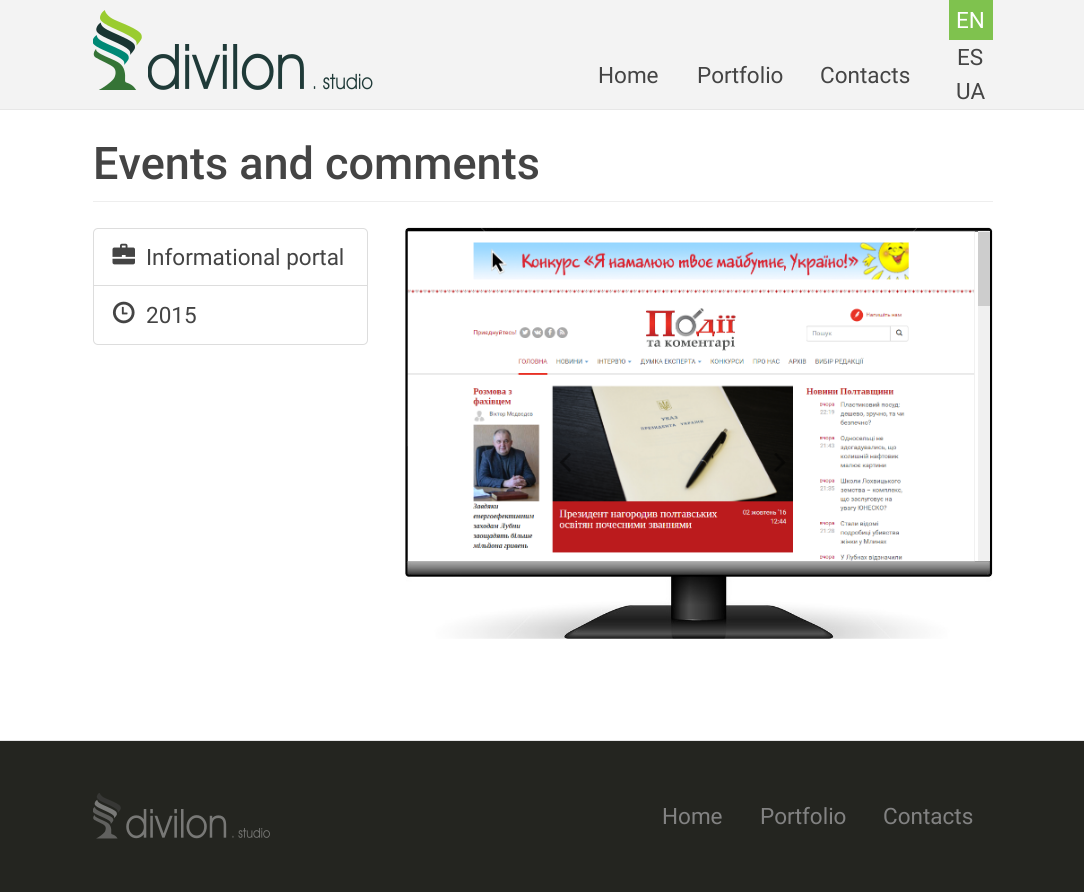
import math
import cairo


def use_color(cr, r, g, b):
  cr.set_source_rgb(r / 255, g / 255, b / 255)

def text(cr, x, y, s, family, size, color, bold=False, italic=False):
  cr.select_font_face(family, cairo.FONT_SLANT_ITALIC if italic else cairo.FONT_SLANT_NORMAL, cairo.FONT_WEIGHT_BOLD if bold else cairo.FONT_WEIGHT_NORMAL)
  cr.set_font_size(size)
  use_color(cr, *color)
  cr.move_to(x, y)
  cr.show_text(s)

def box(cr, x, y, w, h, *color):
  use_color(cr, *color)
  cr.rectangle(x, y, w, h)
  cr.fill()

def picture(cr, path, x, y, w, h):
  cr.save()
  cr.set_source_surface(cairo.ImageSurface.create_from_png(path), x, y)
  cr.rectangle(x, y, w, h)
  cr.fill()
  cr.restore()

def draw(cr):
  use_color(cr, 255, 255, 255)
  cr.paint()
  box(cr, 0, 0, 1084, 109, 243, 243, 243)
  box(cr, 0, 109, 1084, 1, 231, 231, 231)
  picture(cr, "img_01.png", 93, 10, 49, 80)
  picture(cr, "img_02.png", 148, 44, 225, 46)
  box(cr, 949, 0, 44, 40, 127, 194, 78)
  box(cr, 93, 201, 900, 1, 238, 238, 238)
  cr.new_path()
  cr.move_to(98, 228.5)
  cr.line_to(363, 228.5)
  cr.curve_to(365.5, 228.5, 367.5, 230.5, 367.5, 233)
  cr.line_to(367.5, 285.5)
  cr.line_to(93.5, 285.5)
  cr.line_to(93.5, 233)
  cr.curve_to(93.5, 230.5, 95.5, 228.5, 98, 228.5)
  cr.close_path()
  use_color(cr, 221, 221, 221)
  cr.set_line_width(1)
  cr.stroke()
  picture(cr, "img_03.png", 112, 243, 23, 22)
  use_color(cr, 255, 255, 255)
  cr.new_path()
  cr.move_to(93.5, 285.5)
  cr.line_to(367.5, 285.5)
  cr.line_to(367.5, 340)
  cr.curve_to(367.5, 342.5, 365.5, 344.5, 363, 344.5)
  cr.line_to(98, 344.5)
  cr.curve_to(95.5, 344.5, 93.5, 342.5, 93.5, 340)
  cr.close_path()
  cr.fill_preserve()
  use_color(cr, 221, 221, 221)
  cr.stroke()
  picture(cr, "img_04.png", 112, 301, 23, 23)
  picture(cr, "img_05.png", 405, 227, 588, 412)
  picture(cr, "img_06.png", 407, 231, 568, 331)
  box(cr, 978, 306, 12, 255, 240, 240, 240)
  box(cr, 978, 232, 12, 74, 205, 205, 205)
  box(cr, 978, 231, 12, 1, 240, 240, 240)
  box(cr, 0, 741, 1084, 151, 36, 37, 32)
  box(cr, 0, 740, 1084, 1, 229, 229, 229)
  picture(cr, "img_07.png", 93, 793, 28, 46)
  picture(cr, "img_08.png", 126, 809, 144, 30)
  text(cr, 598, 83, "Home", "Roboto", 22.5, (68, 68, 68))
  text(cr, 697, 83, "Portfolio", "Roboto", 22.5, (68, 68, 68))
  text(cr, 820, 83, "Contacts", "Roboto", 22.5, (68, 68, 68))
  text(cr, 956, 28, "EN", "Roboto", 22.5, (255, 255, 255))
  text(cr, 957, 65, "ES", "Roboto", 22.5, (68, 68, 68))
  text(cr, 956, 99, "UA", "Roboto", 22.5, (68, 68, 68))
  text(cr, 93, 179, "Events and comments", "Roboto Medium", 45, (68, 68, 68))
  text(cr, 146, 265, "Informational portal", "Roboto", 22.5, (68, 68, 68))
  text(cr, 146, 323, "2015", "Roboto", 22.5, (68, 68, 68))
  text(cr, 662, 824, "Home", "Roboto", 22.5, (130, 130, 130))
  text(cr, 760, 824, "Portfolio", "Roboto", 22.5, (130, 130, 130))
  text(cr, 883, 824, "Contacts", "Roboto", 22.5, (130, 130, 130))


surface = cairo.ImageSurface(cairo.FORMAT_RGB24, 1084, 892)
cr = cairo.Context(surface)
options = cairo.FontOptions()
options.set_hint_metrics(cairo.HINT_METRICS_OFF)
options.set_hint_style(cairo.HINT_STYLE_NONE)
cr.set_font_options(options)
cr.set_miter_limit(4)
draw(cr)
surface.write_to_png("out.png")
